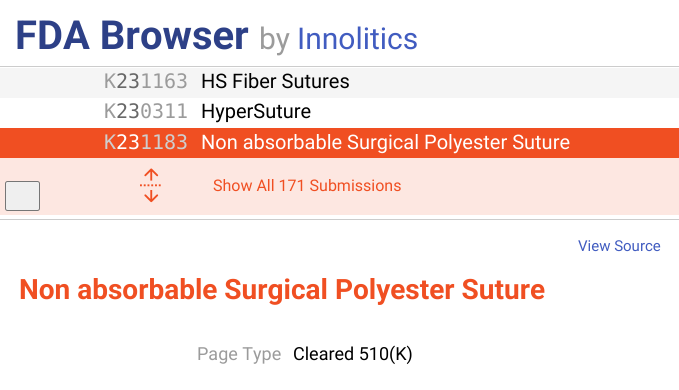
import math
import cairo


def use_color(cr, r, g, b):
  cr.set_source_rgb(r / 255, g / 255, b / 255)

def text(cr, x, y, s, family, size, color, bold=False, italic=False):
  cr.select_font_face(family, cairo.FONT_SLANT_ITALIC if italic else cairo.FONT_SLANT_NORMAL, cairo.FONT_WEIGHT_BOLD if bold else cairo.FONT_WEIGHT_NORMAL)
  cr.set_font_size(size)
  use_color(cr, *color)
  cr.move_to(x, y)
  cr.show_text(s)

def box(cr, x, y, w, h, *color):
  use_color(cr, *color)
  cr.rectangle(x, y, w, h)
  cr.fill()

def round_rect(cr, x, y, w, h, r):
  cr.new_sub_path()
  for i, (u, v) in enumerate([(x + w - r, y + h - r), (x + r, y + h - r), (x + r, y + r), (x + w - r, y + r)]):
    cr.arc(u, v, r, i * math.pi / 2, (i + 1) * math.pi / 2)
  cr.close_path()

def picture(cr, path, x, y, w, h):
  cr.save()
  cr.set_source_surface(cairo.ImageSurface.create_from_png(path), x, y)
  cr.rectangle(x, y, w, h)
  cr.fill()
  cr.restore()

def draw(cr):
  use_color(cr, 255, 255, 255)
  cr.paint()
  box(cr, 0, 66, 679, 1, 204, 204, 204)
  box(cr, 0, 68, 679, 30, 245, 245, 245)
  box(cr, 0, 128, 679, 30, 240, 79, 34)
  box(cr, 0, 158, 679, 57, 253, 231, 225)
  picture(cr, "img_01.png", 140, 168, 21, 35)
  box(cr, 0, 219, 679, 1, 204, 204, 204)
  use_color(cr, 239, 239, 239)
  round_rect(cr, 5.5, 181.5, 34, 29, 2)
  cr.fill_preserve()
  use_color(cr, 118, 118, 118)
  cr.set_line_width(1)
  cr.stroke()
  text(cr, 15, 49, "FDA Browser", "Roboto", 40, (45, 64, 135), bold=True)
  text(cr, 259, 49, "by", "Roboto", 30, (155, 155, 155))
  text(cr, 297, 49, "Innolitics", "Roboto", 30, (65, 92, 192))
  text(cr, 104, 88, "K", "DejaVu Sans Mono", 20, (155, 155, 155))
  text(cr, 116, 88, "23", "DejaVu Sans Mono", 20, (104, 104, 104))
  text(cr, 140, 88, "1163", "DejaVu Sans Mono", 20, (155, 155, 155))
  text(cr, 201, 88, "HS Fiber Sutures", "Roboto", 20, (0, 0, 0))
  text(cr, 104, 118, "K", "DejaVu Sans Mono", 20, (155, 155, 155))
  text(cr, 116, 118, "23", "DejaVu Sans Mono", 20, (104, 104, 104))
  text(cr, 140, 118, "0311", "DejaVu Sans Mono", 20, (155, 155, 155))
  text(cr, 201, 118, "HyperSuture", "Roboto", 20, (0, 0, 0))
  text(cr, 104, 149, "K", "DejaVu Sans Mono", 20, (206, 206, 206))
  text(cr, 116, 149, "23", "DejaVu Sans Mono", 20, (255, 255, 255))
  text(cr, 140, 149, "1183", "DejaVu Sans Mono", 20, (206, 206, 206))
  text(cr, 201, 149, "Non absorbable Surgical Polyester Suture", "Roboto", 20, (255, 255, 255))
  text(cr, 213, 191, "Show All 171 Submissions", "Roboto", 16, (240, 79, 34))
  text(cr, 578, 251, "View Source", "Roboto", 15, (65, 92, 192))
  text(cr, 19, 299, "Non absorbable Surgical Polyester Suture", "Roboto", 28, (240, 79, 34), bold=True)
  text(cr, 197, 360, "Page Type", "Roboto", 18, (155, 155, 155))
  text(cr, 293, 360, "Cleared 510(K)", "Roboto", 18, (0, 0, 0))


surface = cairo.ImageSurface(cairo.FORMAT_RGB24, 679, 390)
cr = cairo.Context(surface)
options = cairo.FontOptions()
options.set_hint_metrics(cairo.HINT_METRICS_OFF)
options.set_hint_style(cairo.HINT_STYLE_NONE)
cr.set_font_options(options)
cr.set_miter_limit(4)
draw(cr)
surface.write_to_png("out.png")
